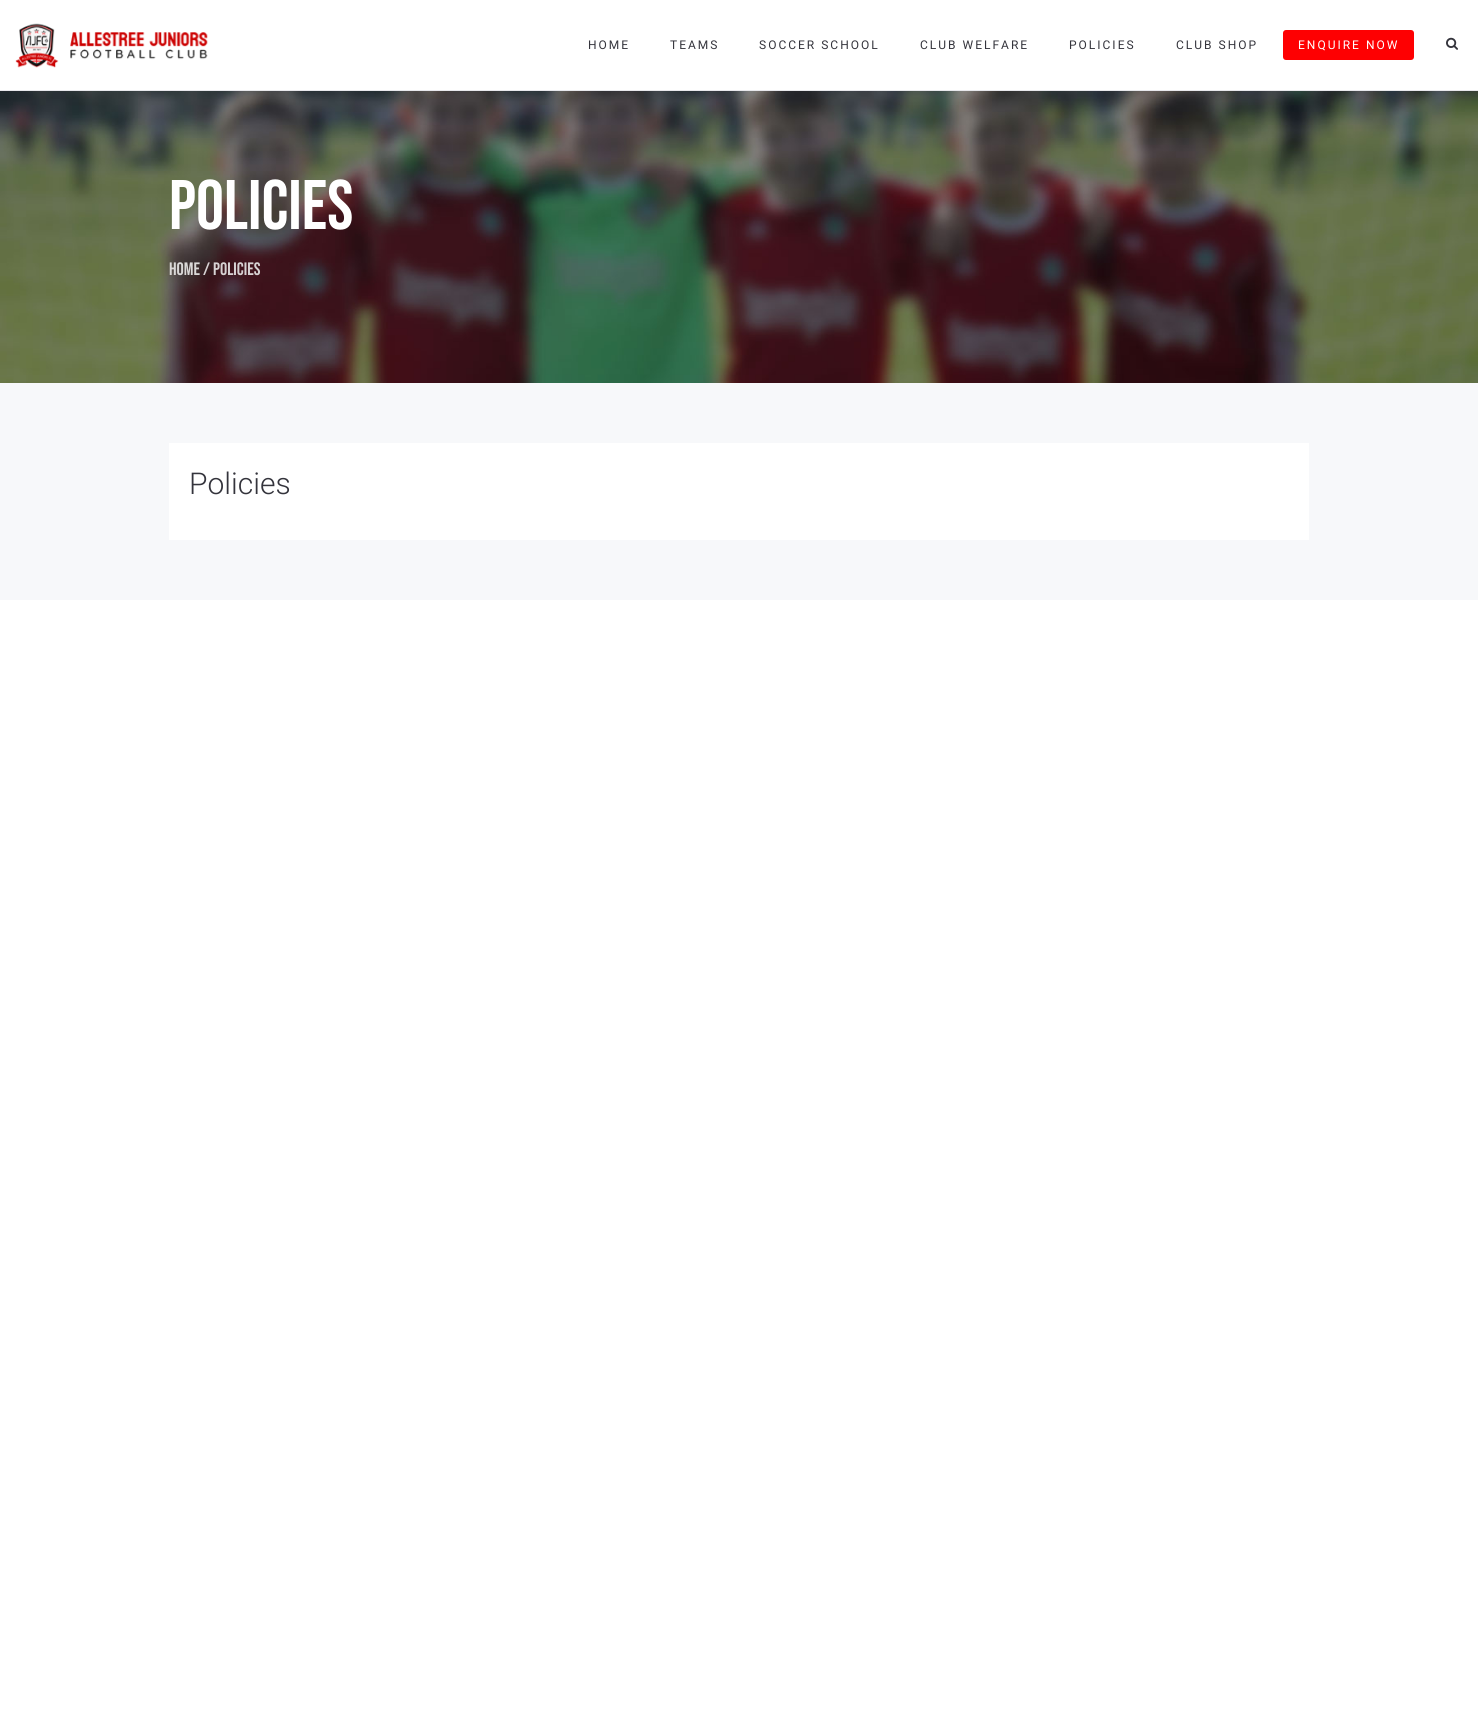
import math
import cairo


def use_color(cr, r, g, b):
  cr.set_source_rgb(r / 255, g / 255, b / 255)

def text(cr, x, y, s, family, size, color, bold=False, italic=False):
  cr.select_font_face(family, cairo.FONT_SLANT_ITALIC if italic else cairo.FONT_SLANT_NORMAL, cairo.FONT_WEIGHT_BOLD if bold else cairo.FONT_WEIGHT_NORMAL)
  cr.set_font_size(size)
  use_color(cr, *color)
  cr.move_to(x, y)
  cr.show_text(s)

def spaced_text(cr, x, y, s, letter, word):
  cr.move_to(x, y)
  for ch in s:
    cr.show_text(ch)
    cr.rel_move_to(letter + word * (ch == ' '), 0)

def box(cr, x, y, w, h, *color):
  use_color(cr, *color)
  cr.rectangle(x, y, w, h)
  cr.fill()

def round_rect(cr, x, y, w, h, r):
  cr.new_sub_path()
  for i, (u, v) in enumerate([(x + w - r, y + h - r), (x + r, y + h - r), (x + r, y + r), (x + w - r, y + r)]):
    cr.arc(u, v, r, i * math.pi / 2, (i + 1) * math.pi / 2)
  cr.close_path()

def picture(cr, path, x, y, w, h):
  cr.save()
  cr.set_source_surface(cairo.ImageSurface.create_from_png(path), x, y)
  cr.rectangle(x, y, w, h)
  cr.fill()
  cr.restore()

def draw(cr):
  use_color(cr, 255, 255, 255)
  cr.paint()
  box(cr, 0, 90, 1478, 1, 232, 232, 236)
  picture(cr, "img_01.png", 15, 23, 193, 45)
  picture(cr, "img_02.png", 1446, 37, 12, 13)
  use_color(cr, 254, 0, 2)
  round_rect(cr, 1283, 30, 131, 30, 3)
  cr.fill()
  picture(cr, "img_03.png", 0, 91, 1478, 292)
  box(cr, 0, 383, 1478, 217, 247, 248, 250)
  box(cr, 169, 443, 1140, 97, 255, 255, 255)
  cr.select_font_face("Roboto")
  cr.set_font_size(12)
  use_color(cr, 52, 52, 60)
  spaced_text(cr, 588, 49, "HOME", 2, 0)
  spaced_text(cr, 670, 49, "TEAMS", 2, 0)
  spaced_text(cr, 759, 49, "SOCCER SCHOOL", 2, 0)
  spaced_text(cr, 920, 49, "CLUB WELFARE", 2, 0)
  spaced_text(cr, 1069, 49, "POLICIES", 2, 0)
  spaced_text(cr, 1176, 49, "CLUB SHOP", 2, 0)
  use_color(cr, 255, 255, 255)
  spaced_text(cr, 1298, 49, "ENQUIRE NOW", 2, 0)
  text(cr, 169, 229, "Policies", "Bebas Neue", 70, (255, 255, 255))
  text(cr, 169, 275, "Home", "Bebas Neue", 18, (218, 216, 215))
  text(cr, 203, 275, "/", "Bebas Neue", 18, (215, 210, 211))
  text(cr, 213, 275, "Policies", "Bebas Neue", 18, (215, 210, 211))
  text(cr, 189, 494, "Policies", "Roboto Light", 30, (52, 52, 60))


surface = cairo.ImageSurface(cairo.FORMAT_RGB24, 1478, 1711)
cr = cairo.Context(surface)
options = cairo.FontOptions()
options.set_hint_metrics(cairo.HINT_METRICS_OFF)
options.set_hint_style(cairo.HINT_STYLE_NONE)
cr.set_font_options(options)
cr.set_miter_limit(4)
draw(cr)
surface.write_to_png("out.png")
